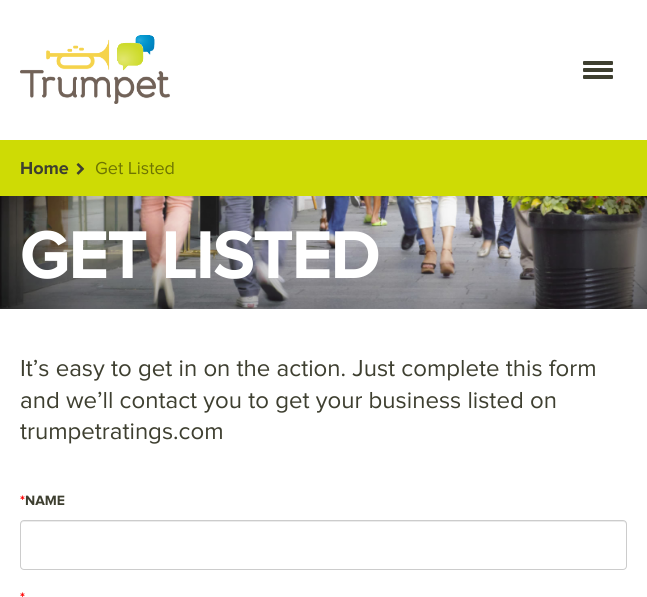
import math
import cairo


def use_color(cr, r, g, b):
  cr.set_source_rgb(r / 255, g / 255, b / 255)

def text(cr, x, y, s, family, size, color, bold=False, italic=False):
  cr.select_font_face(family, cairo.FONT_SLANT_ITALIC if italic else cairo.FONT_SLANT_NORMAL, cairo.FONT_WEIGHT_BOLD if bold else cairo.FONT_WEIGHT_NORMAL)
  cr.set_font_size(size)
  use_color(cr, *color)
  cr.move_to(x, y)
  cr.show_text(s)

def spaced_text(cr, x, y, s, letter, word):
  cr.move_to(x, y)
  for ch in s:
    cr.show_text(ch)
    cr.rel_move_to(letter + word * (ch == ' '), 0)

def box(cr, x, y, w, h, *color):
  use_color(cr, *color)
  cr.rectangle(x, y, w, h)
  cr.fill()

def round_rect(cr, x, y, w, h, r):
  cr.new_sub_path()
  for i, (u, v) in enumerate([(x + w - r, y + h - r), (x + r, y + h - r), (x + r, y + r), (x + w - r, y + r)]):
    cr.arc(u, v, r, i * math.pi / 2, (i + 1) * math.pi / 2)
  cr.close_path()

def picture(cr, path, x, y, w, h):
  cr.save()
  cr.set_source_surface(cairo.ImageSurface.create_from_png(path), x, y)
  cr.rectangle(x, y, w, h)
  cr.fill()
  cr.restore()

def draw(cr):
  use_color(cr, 255, 255, 255)
  cr.paint()
  picture(cr, "img_01.png", 20, 35, 150, 69)
  use_color(cr, 62, 63, 48)
  round_rect(cr, 583, 61, 30, 4, 1)
  cr.fill()
  round_rect(cr, 583, 68, 30, 4, 1)
  cr.fill()
  round_rect(cr, 583, 75, 30, 4, 1)
  cr.fill()
  box(cr, 0, 140, 647, 56, 206, 219, 5)
  picture(cr, "img_02.png", 76, 163, 9, 12)
  picture(cr, "img_03.png", 0, 196, 647, 113)
  use_color(cr, 236, 236, 236)
  cr.new_path()
  cr.move_to(24, 522)
  cr.line_to(623, 522)
  cr.curve_to(625, 522, 626, 523, 626, 525)
  cr.line_to(626, 524)
  cr.curve_to(626, 522, 625, 521, 623, 521)
  cr.line_to(24, 521)
  cr.curve_to(22, 521, 21, 522, 21, 524)
  cr.line_to(21, 525)
  cr.curve_to(21, 523, 22, 522, 24, 522)
  cr.close_path()
  cr.fill()
  round_rect(cr, 20.5, 520.5, 606, 49, 3.5)
  use_color(cr, 204, 204, 204)
  cr.set_line_width(1)
  cr.stroke()
  text(cr, 20, 174, "Home", "Proxima Nova", 18, (62, 63, 48), bold=True)
  text(cr, 95, 174, "Get Listed", "Proxima Nova", 18, (110, 117, 2))
  cr.select_font_face("Proxima Nova", cairo.FONT_SLANT_NORMAL, cairo.FONT_WEIGHT_BOLD)
  cr.set_font_size(70)
  use_color(cr, 255, 255, 255)
  spaced_text(cr, 20, 278, "GET LISTED", -2, 0)
  text(cr, 20, 376, "It’s easy to get in on the action. Just complete this form", "Proxima Nova", 24, (62, 63, 48))
  text(cr, 20, 408, "and we’ll contact you to get your business listed on", "Proxima Nova", 24, (62, 63, 48))
  text(cr, 20, 439, "trumpetratings.com", "Proxima Nova", 24, (62, 63, 48))
  text(cr, 20, 505, "*", "Proxima Nova", 14, (255, 0, 0), bold=True)
  text(cr, 25, 505, "NAME", "Proxima Nova", 14, (62, 63, 48), bold=True)
  text(cr, 20, 602, "*", "Proxima Nova", 14, (255, 0, 0), bold=True)


surface = cairo.ImageSurface(cairo.FORMAT_RGB24, 647, 597)
cr = cairo.Context(surface)
options = cairo.FontOptions()
options.set_hint_metrics(cairo.HINT_METRICS_OFF)
options.set_hint_style(cairo.HINT_STYLE_NONE)
cr.set_font_options(options)
cr.set_miter_limit(4)
draw(cr)
surface.write_to_png("out.png")
